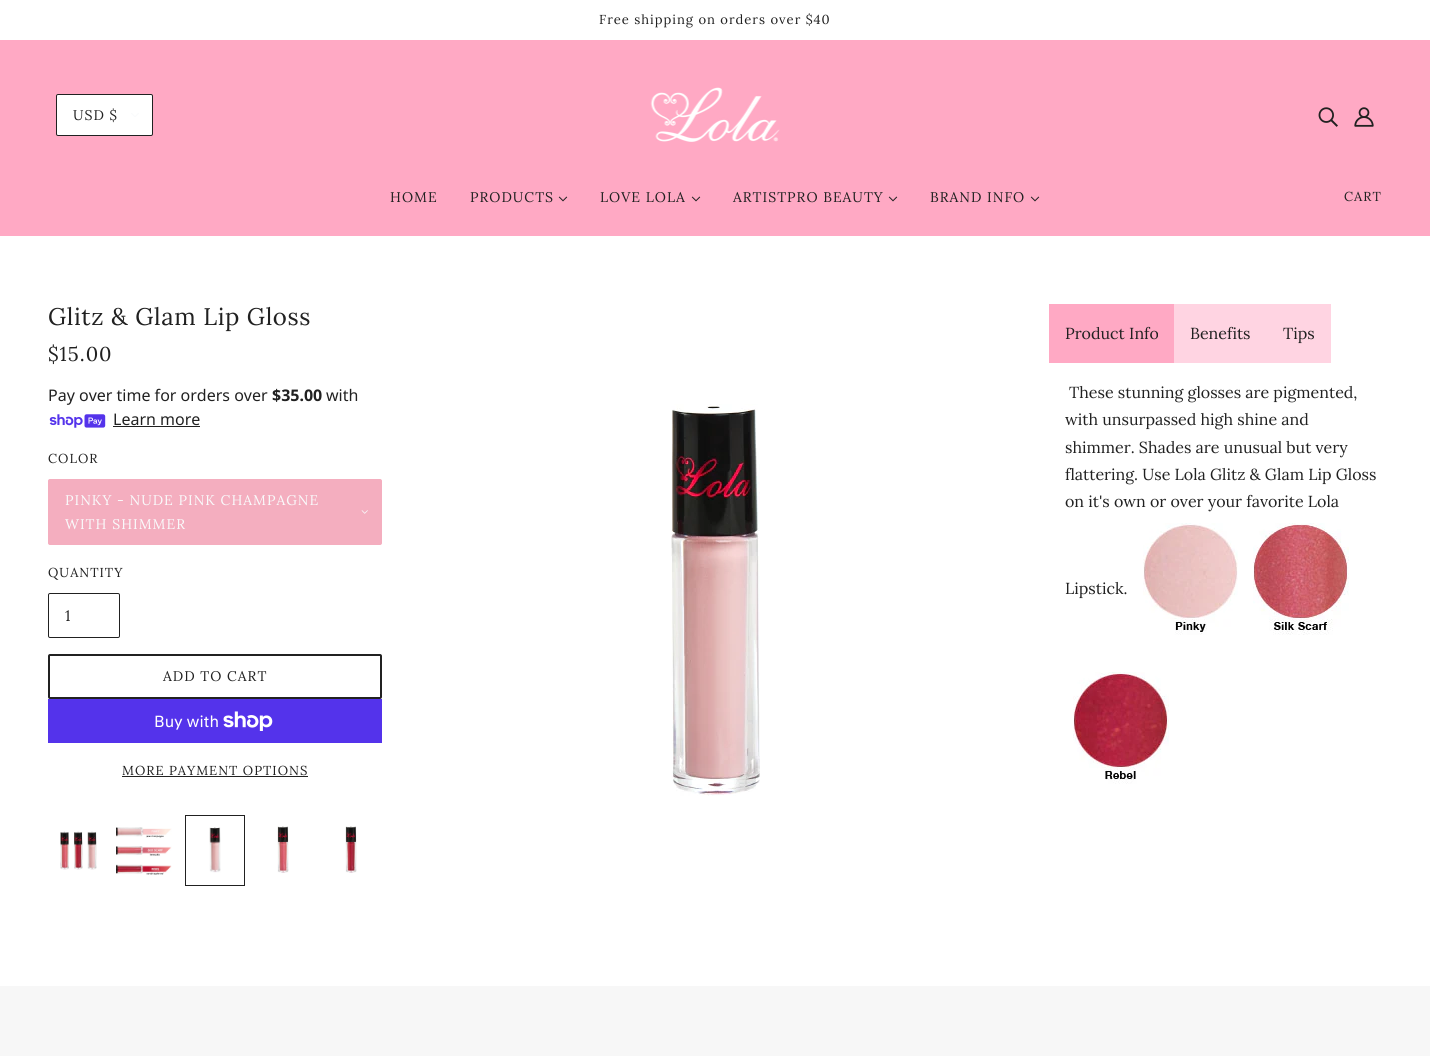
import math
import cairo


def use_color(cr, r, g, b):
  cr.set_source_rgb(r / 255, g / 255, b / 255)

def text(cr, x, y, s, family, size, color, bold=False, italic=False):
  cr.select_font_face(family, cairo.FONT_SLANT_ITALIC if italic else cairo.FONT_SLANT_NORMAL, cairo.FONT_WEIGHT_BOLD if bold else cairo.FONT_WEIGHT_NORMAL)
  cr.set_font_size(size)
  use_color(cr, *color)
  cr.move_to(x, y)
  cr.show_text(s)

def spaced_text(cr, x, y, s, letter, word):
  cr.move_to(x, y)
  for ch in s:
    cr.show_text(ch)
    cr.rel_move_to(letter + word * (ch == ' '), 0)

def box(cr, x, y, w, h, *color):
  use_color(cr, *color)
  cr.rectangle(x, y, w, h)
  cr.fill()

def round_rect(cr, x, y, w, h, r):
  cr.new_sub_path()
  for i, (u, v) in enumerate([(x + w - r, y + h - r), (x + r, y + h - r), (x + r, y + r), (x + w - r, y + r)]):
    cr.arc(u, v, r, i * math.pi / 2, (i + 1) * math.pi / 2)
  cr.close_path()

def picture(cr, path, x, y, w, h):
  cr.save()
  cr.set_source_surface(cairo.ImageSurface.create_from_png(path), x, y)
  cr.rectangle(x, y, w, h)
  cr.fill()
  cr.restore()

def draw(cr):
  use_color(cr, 255, 255, 255)
  cr.paint()
  box(cr, 0, 40, 1430, 196, 255, 169, 196)
  use_color(cr, 255, 255, 255)
  round_rect(cr, 56.5, 94.5, 96, 41, 1.5)
  cr.fill_preserve()
  use_color(cr, 33, 33, 33)
  cr.set_line_width(1)
  cr.stroke()
  picture(cr, "img_01.png", 131, 113, 8, 4)
  picture(cr, "img_02.png", 650, 87, 130, 55)
  picture(cr, "img_03.png", 1318, 107, 20, 20)
  picture(cr, "img_04.png", 1354, 107, 20, 20)
  picture(cr, "img_05.png", 558, 196, 10, 6)
  picture(cr, "img_05.png", 691, 196, 10, 6)
  picture(cr, "img_05.png", 888, 196, 10, 6)
  picture(cr, "img_05.png", 1030, 196, 10, 6)
  picture(cr, "img_06.png", 49, 414, 57, 14)
  box(cr, 113, 426, 87, 1, 33, 33, 33)
  use_color(cr, 244, 174, 191)
  round_rect(cr, 48.5, 479.5, 333, 65, 1.5)
  cr.fill_preserve()
  cr.stroke()
  picture(cr, "img_07.png", 361, 510, 7, 4)
  round_rect(cr, 48.5, 593.5, 71, 44, 1.5)
  use_color(cr, 33, 33, 33)
  cr.stroke()
  round_rect(cr, 49, 655, 332, 43, 1)
  cr.set_line_width(2)
  cr.stroke()
  box(cr, 48, 699, 334, 44, 84, 51, 235)
  picture(cr, "img_08.png", 223, 711, 50, 20)
  box(cr, 122, 776, 186, 1, 33, 33, 33)
  picture(cr, "img_09.png", 60, 831, 37, 39)
  picture(cr, "img_10.png", 116, 827, 56, 48)
  cr.rectangle(185.5, 815.5, 59, 70)
  cr.set_line_width(1)
  cr.stroke()
  picture(cr, "img_11.png", 209, 827, 12, 46)
  picture(cr, "img_12.png", 277, 826, 12, 47)
  picture(cr, "img_13.png", 345, 826, 12, 47)
  picture(cr, "img_14.png", 671, 404, 89, 392)
  box(cr, 1049, 304, 125, 59, 255, 169, 196)
  box(cr, 1174, 304, 157, 59, 255, 212, 226)
  picture(cr, "img_15.png", 1143, 523, 95, 112)
  picture(cr, "img_16.png", 1253, 523, 96, 112)
  picture(cr, "img_17.png", 1073, 672, 96, 112)
  box(cr, 0, 986, 1430, 70, 247, 247, 247)
  cr.select_font_face("Lora")
  cr.set_font_size(13)
  use_color(cr, 33, 33, 33)
  spaced_text(cr, 599, 24, "Free shipping on orders over $40", 1, 0)
  cr.set_font_size(14)
  spaced_text(cr, 73, 120, "USD $", 1, 0)
  spaced_text(cr, 390, 202, "HOME", 1, 0)
  spaced_text(cr, 470, 202, "PRODUCTS", 1, 0)
  spaced_text(cr, 600, 202, "LOVE LOLA", 1, 0)
  spaced_text(cr, 733, 202, "ARTISTPRO BEAUTY", 1, 0)
  spaced_text(cr, 930, 202, "BRAND INFO", 1, 0)
  cr.set_font_size(13)
  spaced_text(cr, 1344, 201, "CART", 1, 0)
  cr.set_font_size(24)
  spaced_text(cr, 48, 325, "Glitz & Glam Lip Gloss", 0.6, 0)
  cr.set_font_size(20)
  spaced_text(cr, 48, 361, "$15.00", 1, 0)
  text(cr, 48, 401, "Pay over time for orders over", "Noto Sans", 16, (33, 33, 33))
  text(cr, 272, 401, "$35.00", "Noto Sans", 16, (33, 33, 33), bold=True)
  text(cr, 326, 401, "with", "Noto Sans", 16, (33, 33, 33))
  text(cr, 113, 425, "Learn more", "Noto Sans", 16, (33, 33, 33))
  cr.select_font_face("Lora")
  cr.set_font_size(13)
  spaced_text(cr, 48, 463, "COLOR", 1, 0)
  cr.set_font_size(14)
  use_color(cr, 249, 250, 251)
  spaced_text(cr, 65, 505, "PINKY - NUDE PINK CHAMPAGNE", 1, 0)
  spaced_text(cr, 65, 529, "WITH SHIMMER", 1, 0)
  cr.set_font_size(13)
  use_color(cr, 33, 33, 33)
  spaced_text(cr, 48, 577, "QUANTITY", 1, 0)
  text(cr, 65, 621, "1", "Lora", 15, (33, 33, 33))
  cr.set_font_size(14)
  spaced_text(cr, 163, 681, "ADD TO CART", 1, 0)
  text(cr, 154, 727, "Buy with", "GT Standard", 16, (255, 255, 255))
  cr.select_font_face("Lora")
  cr.set_font_size(13)
  use_color(cr, 33, 33, 33)
  spaced_text(cr, 122, 775, "MORE PAYMENT OPTIONS", 1, 0)
  text(cr, 1065, 339, "Product Info", "Lora", 16, (33, 33, 33))
  text(cr, 1190, 339, "Benefits", "Lora", 16, (33, 33, 33))
  text(cr, 1283, 339, "Tips", "Lora", 16, (33, 33, 33))
  text(cr, 1069, 398, "These stunning glosses are pigmented,", "Lora", 16, (33, 33, 33))
  text(cr, 1065, 425, "with unsurpassed high shine and", "Lora", 16, (33, 33, 33))
  text(cr, 1065, 453, "shimmer. Shades are unusual but very", "Lora", 16, (33, 33, 33))
  text(cr, 1065, 480, "flattering. Use Lola Glitz & Glam Lip Gloss", "Lora", 16, (33, 33, 33))
  text(cr, 1065, 507, "on it's own or over your favorite Lola", "Lora", 16, (33, 33, 33))
  text(cr, 1065, 594, "Lipstick.", "Lora", 16, (33, 33, 33))


surface = cairo.ImageSurface(cairo.FORMAT_RGB24, 1430, 1056)
cr = cairo.Context(surface)
options = cairo.FontOptions()
options.set_hint_metrics(cairo.HINT_METRICS_OFF)
options.set_hint_style(cairo.HINT_STYLE_NONE)
cr.set_font_options(options)
cr.set_miter_limit(4)
draw(cr)
surface.write_to_png("out.png")
